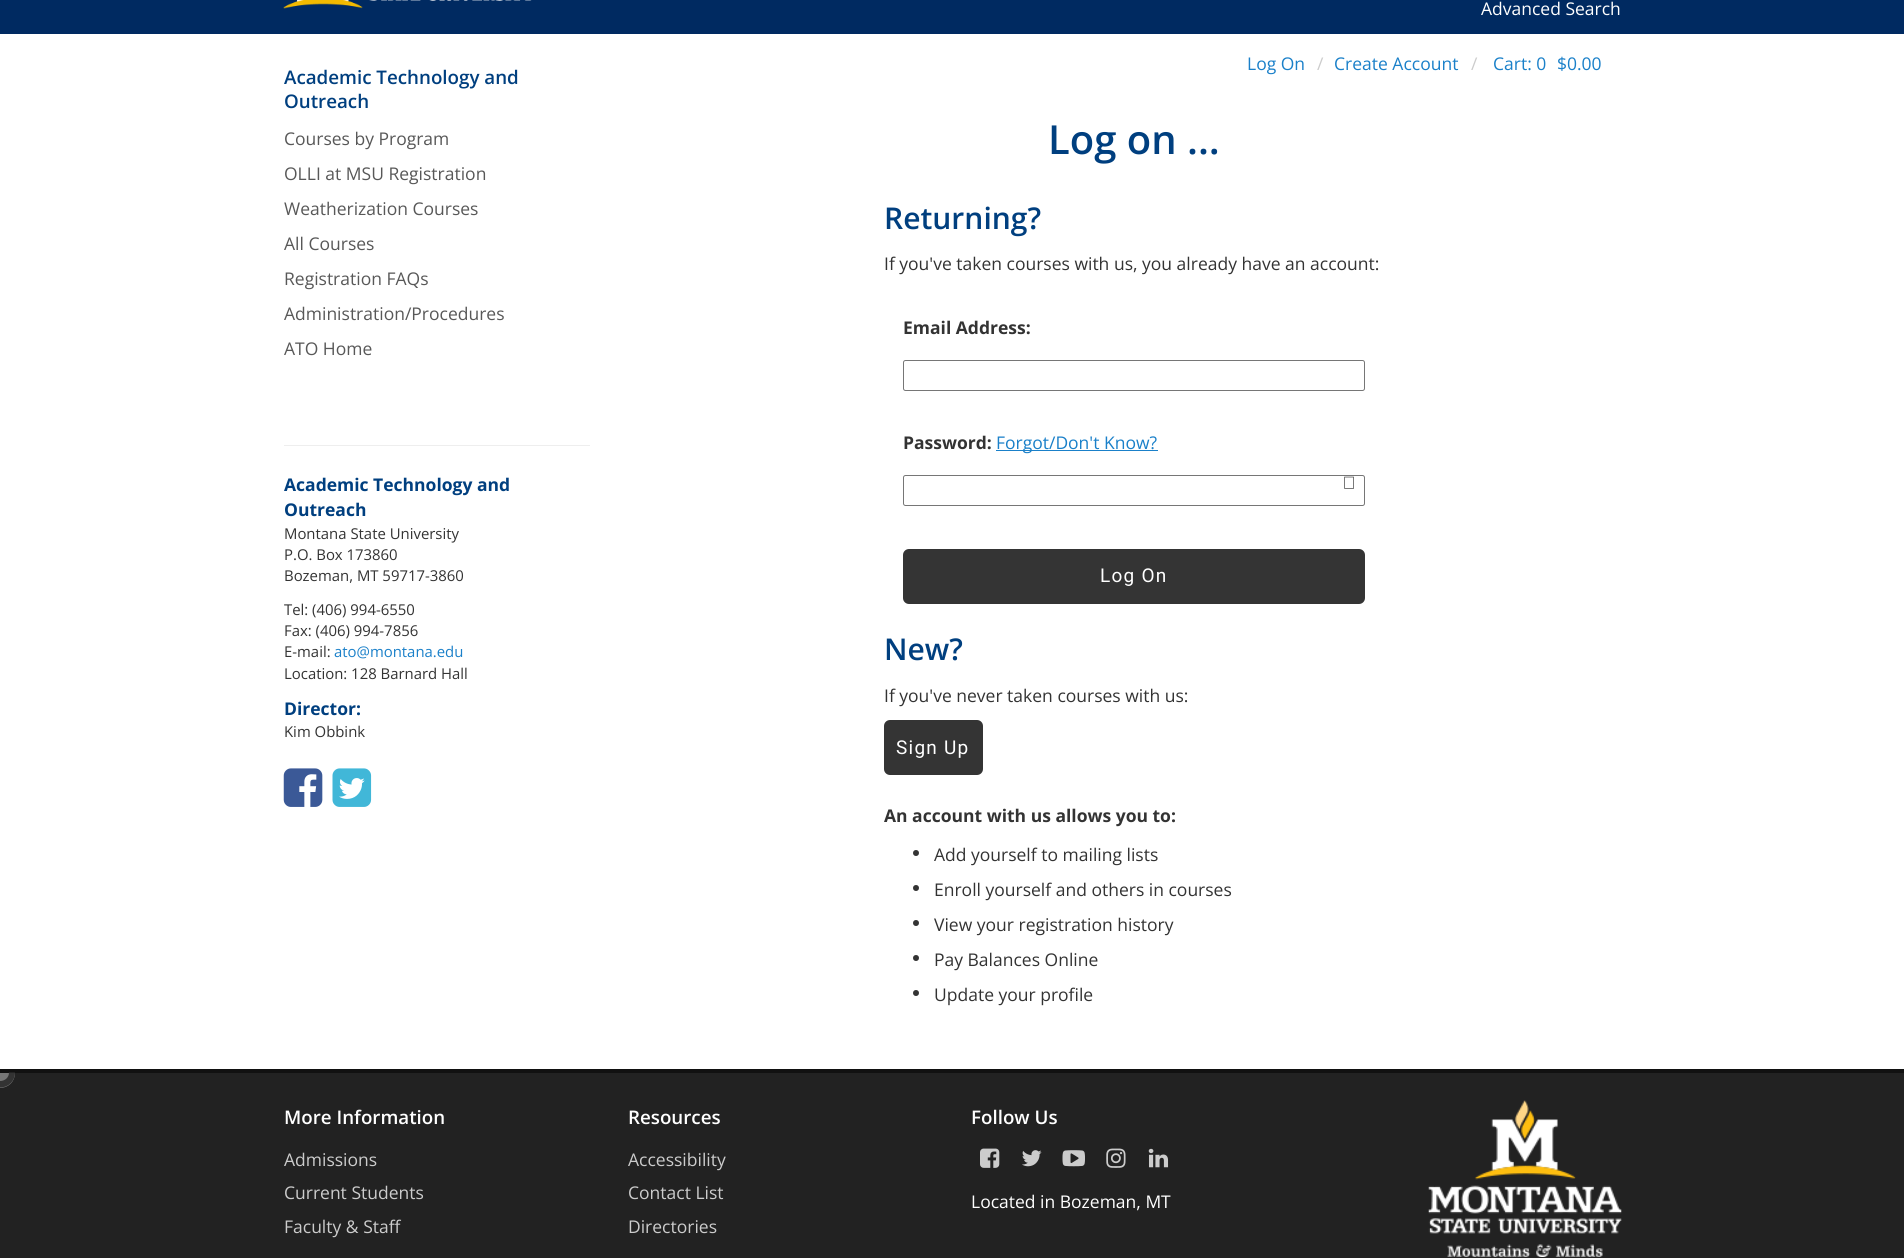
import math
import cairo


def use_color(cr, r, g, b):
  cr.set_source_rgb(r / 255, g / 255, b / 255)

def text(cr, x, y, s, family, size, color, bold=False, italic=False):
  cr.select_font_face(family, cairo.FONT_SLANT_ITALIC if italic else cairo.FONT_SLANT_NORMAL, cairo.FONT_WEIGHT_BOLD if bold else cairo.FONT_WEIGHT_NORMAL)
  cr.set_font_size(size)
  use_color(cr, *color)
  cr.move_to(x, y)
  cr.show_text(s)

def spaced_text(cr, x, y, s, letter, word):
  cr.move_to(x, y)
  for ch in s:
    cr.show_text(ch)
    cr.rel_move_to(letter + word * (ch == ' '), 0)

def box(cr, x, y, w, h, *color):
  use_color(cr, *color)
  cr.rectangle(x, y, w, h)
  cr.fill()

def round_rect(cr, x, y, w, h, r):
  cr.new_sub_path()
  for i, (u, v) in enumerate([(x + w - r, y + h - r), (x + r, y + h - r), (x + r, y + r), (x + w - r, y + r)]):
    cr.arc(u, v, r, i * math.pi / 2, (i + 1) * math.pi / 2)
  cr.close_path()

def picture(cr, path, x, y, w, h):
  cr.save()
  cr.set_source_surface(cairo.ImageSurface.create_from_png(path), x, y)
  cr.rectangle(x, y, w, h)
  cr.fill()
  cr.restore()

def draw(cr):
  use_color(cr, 255, 255, 255)
  cr.paint()
  box(cr, 0, 0, 1904, 34, 0, 42, 97)
  picture(cr, "img_01.png", 283, 0, 249, 9)
  round_rect(cr, 903.5, 360.5, 461, 30, 2)
  use_color(cr, 118, 118, 118)
  cr.set_line_width(1)
  cr.stroke()
  box(cr, 996, 450, 162, 1, 26, 128, 201)
  round_rect(cr, 903.5, 475.5, 461, 30, 2)
  use_color(cr, 118, 118, 118)
  cr.stroke()
  picture(cr, "img_02.png", 1344, 476, 10, 13)
  use_color(cr, 52, 52, 52)
  round_rect(cr, 903, 549, 462, 55, 6)
  cr.fill()
  round_rect(cr, 884, 720, 99, 55, 6)
  cr.fill()
  use_color(cr, 51, 51, 51)
  cr.arc(916, 853, 3, 0, 2 * math.pi)
  cr.fill()
  cr.arc(916, 888, 3, 0, 2 * math.pi)
  cr.fill()
  cr.arc(916, 923, 3, 0, 2 * math.pi)
  cr.fill()
  cr.arc(916, 958, 3, 0, 2 * math.pi)
  cr.fill()
  cr.arc(916, 993, 3, 0, 2 * math.pi)
  cr.fill()
  box(cr, 284, 445, 306, 1, 238, 238, 238)
  picture(cr, "img_03.png", 283, 768, 40, 39)
  picture(cr, "img_04.png", 332, 768, 40, 39)
  box(cr, 0, 1073, 1904, 185, 34, 34, 34)
  box(cr, 0, 1069, 1904, 4, 17, 17, 17)
  use_color(cr, 119, 119, 119)
  cr.new_path()
  cr.move_to(0, 1073)
  cr.line_to(15, 1073)
  cr.curve_to(15, 1081.5, 8.5, 1088, 0, 1088)
  cr.close_path()
  cr.fill()
  use_color(cr, 51, 51, 51)
  cr.set_fill_rule(cairo.FILL_RULE_EVEN_ODD)
  cr.new_path()
  cr.move_to(0, 1072.5)
  cr.line_to(15, 1072.5)
  cr.curve_to(15, 1081, 8.5, 1087.5, 0, 1087.5)
  cr.close_path()
  cr.move_to(0, 1072.5)
  cr.line_to(9, 1072.5)
  cr.curve_to(9, 1077.5, 5, 1081, 0, 1081)
  cr.close_path()
  cr.fill()
  picture(cr, "img_05.png", 980, 1148, 20, 20)
  picture(cr, "img_06.png", 1022, 1150, 20, 17)
  picture(cr, "img_07.png", 1062, 1150, 23, 17)
  picture(cr, "img_08.png", 1106, 1148, 20, 20)
  picture(cr, "img_09.png", 1148, 1148, 21, 20)
  picture(cr, "img_10.png", 1428, 1100, 194, 157)
  text(cr, 1481, 15, "Advanced Search", "Open Sans", 17.5, (255, 255, 255))
  text(cr, 284, 84, "Academic Technology and", "Open Sans SemiBold", 18.75, (0, 63, 127))
  text(cr, 284, 108, "Outreach", "Open Sans SemiBold", 18.75, (0, 63, 127))
  text(cr, 284, 145, "Courses by Program", "Open Sans", 17.5, (88, 88, 88))
  text(cr, 284, 180, "OLLI at MSU Registration", "Open Sans", 17.5, (88, 88, 88))
  text(cr, 284, 215, "Weatherization Courses", "Open Sans", 17.5, (88, 88, 88))
  text(cr, 284, 250, "All Courses", "Open Sans", 17.5, (88, 88, 88))
  text(cr, 284, 285, "Registration FAQs", "Open Sans", 17.5, (88, 88, 88))
  text(cr, 284, 320, "Administration/Procedures", "Open Sans", 17.5, (88, 88, 88))
  text(cr, 284, 355, "ATO Home", "Open Sans", 17.5, (88, 88, 88))
  text(cr, 1247, 70, "Log On", "Open Sans", 17.5, (26, 128, 201))
  text(cr, 1317, 70, "/", "Open Sans", 17.5, (204, 204, 204))
  text(cr, 1334, 70, "Create Account", "Open Sans", 17.5, (26, 128, 201))
  text(cr, 1471, 70, "/", "Open Sans", 17.5, (204, 204, 204))
  text(cr, 1493, 70, "Cart: 0", "Open Sans", 17.5, (26, 128, 201))
  text(cr, 1557, 70, "$0.00", "Open Sans", 17.5, (26, 128, 201))
  text(cr, 1048, 154, "Log on ...", "Open Sans SemiBold", 40, (0, 63, 127))
  text(cr, 884, 229, "Returning?", "Open Sans SemiBold", 30, (0, 63, 127))
  text(cr, 884, 270, "If you've taken courses with us, you already have an account:", "Open Sans", 17.5, (51, 51, 51))
  text(cr, 903, 334, "Email Address:", "Open Sans", 17.5, (51, 51, 51), bold=True)
  text(cr, 903, 449, "Password:", "Open Sans", 17.5, (51, 51, 51), bold=True)
  text(cr, 996, 449, "Forgot/Don't Know?", "Open Sans", 17.5, (26, 128, 201))
  cr.select_font_face("Roboto")
  cr.set_font_size(19)
  use_color(cr, 255, 255, 255)
  spaced_text(cr, 1100, 582, "Log On", 1.25, 0)
  text(cr, 884, 660, "New?", "Open Sans SemiBold", 30, (0, 63, 127))
  text(cr, 884, 702, "If you've never taken courses with us:", "Open Sans", 17.5, (51, 51, 51))
  cr.select_font_face("Roboto")
  cr.set_font_size(19)
  use_color(cr, 255, 255, 255)
  spaced_text(cr, 896, 754, "Sign Up", 1.25, 0)
  text(cr, 884, 822, "An account with us allows you to:", "Open Sans", 17.5, (51, 51, 51), bold=True)
  text(cr, 934, 861, "Add yourself to mailing lists", "Open Sans", 17.5, (51, 51, 51))
  text(cr, 934, 896, "Enroll yourself and others in courses", "Open Sans", 17.5, (51, 51, 51))
  text(cr, 934, 931, "View your registration history", "Open Sans", 17.5, (51, 51, 51))
  text(cr, 934, 966, "Pay Balances Online", "Open Sans", 17.5, (51, 51, 51))
  text(cr, 934, 1001, "Update your profile", "Open Sans", 17.5, (51, 51, 51))
  text(cr, 284, 491, "Academic Technology and", "Open Sans", 17.5, (0, 63, 127), bold=True)
  text(cr, 284, 516, "Outreach", "Open Sans", 17.5, (0, 63, 127), bold=True)
  text(cr, 284, 539, "Montana State University", "Open Sans", 14.9, (51, 51, 51))
  text(cr, 284, 560, "P.O. Box 173860", "Open Sans", 14.9, (51, 51, 51))
  text(cr, 284, 581, "Bozeman, MT 59717-3860", "Open Sans", 14.9, (51, 51, 51))
  text(cr, 284, 615, "Tel: (406) 994-6550", "Open Sans", 14.9, (51, 51, 51))
  text(cr, 284, 636, "Fax: (406) 994-7856", "Open Sans", 14.9, (51, 51, 51))
  text(cr, 284, 657, "E-mail:", "Open Sans", 14.9, (51, 51, 51))
  text(cr, 334, 657, "ato@montana.edu", "Open Sans", 14.9, (26, 128, 201))
  text(cr, 284, 679, "Location: 128 Barnard Hall", "Open Sans", 14.9, (51, 51, 51))
  text(cr, 284, 715, "Director:", "Open Sans", 17.5, (0, 63, 127), bold=True)
  text(cr, 284, 737, "Kim Obbink", "Open Sans", 14.9, (51, 51, 51))
  text(cr, 284, 1124, "More Information", "Open Sans SemiBold", 18.75, (255, 255, 255))
  text(cr, 284, 1166, "Admissions", "Open Sans", 17.5, (204, 204, 204))
  text(cr, 284, 1199, "Current Students", "Open Sans", 17.5, (204, 204, 204))
  text(cr, 284, 1233, "Faculty & Staff", "Open Sans", 17.5, (204, 204, 204))
  text(cr, 628, 1124, "Resources", "Open Sans SemiBold", 18.75, (255, 255, 255))
  text(cr, 628, 1166, "Accessibility", "Open Sans", 17.5, (204, 204, 204))
  text(cr, 628, 1199, "Contact List", "Open Sans", 17.5, (204, 204, 204))
  text(cr, 628, 1233, "Directories", "Open Sans", 17.5, (204, 204, 204))
  text(cr, 971, 1124, "Follow Us", "Open Sans SemiBold", 18.75, (255, 255, 255))
  text(cr, 971, 1208, "Located in Bozeman, MT", "Open Sans", 17.5, (255, 255, 255))


surface = cairo.ImageSurface(cairo.FORMAT_RGB24, 1904, 1258)
cr = cairo.Context(surface)
options = cairo.FontOptions()
options.set_hint_metrics(cairo.HINT_METRICS_OFF)
options.set_hint_style(cairo.HINT_STYLE_NONE)
cr.set_font_options(options)
cr.set_miter_limit(4)
draw(cr)
surface.write_to_png("out.png")
